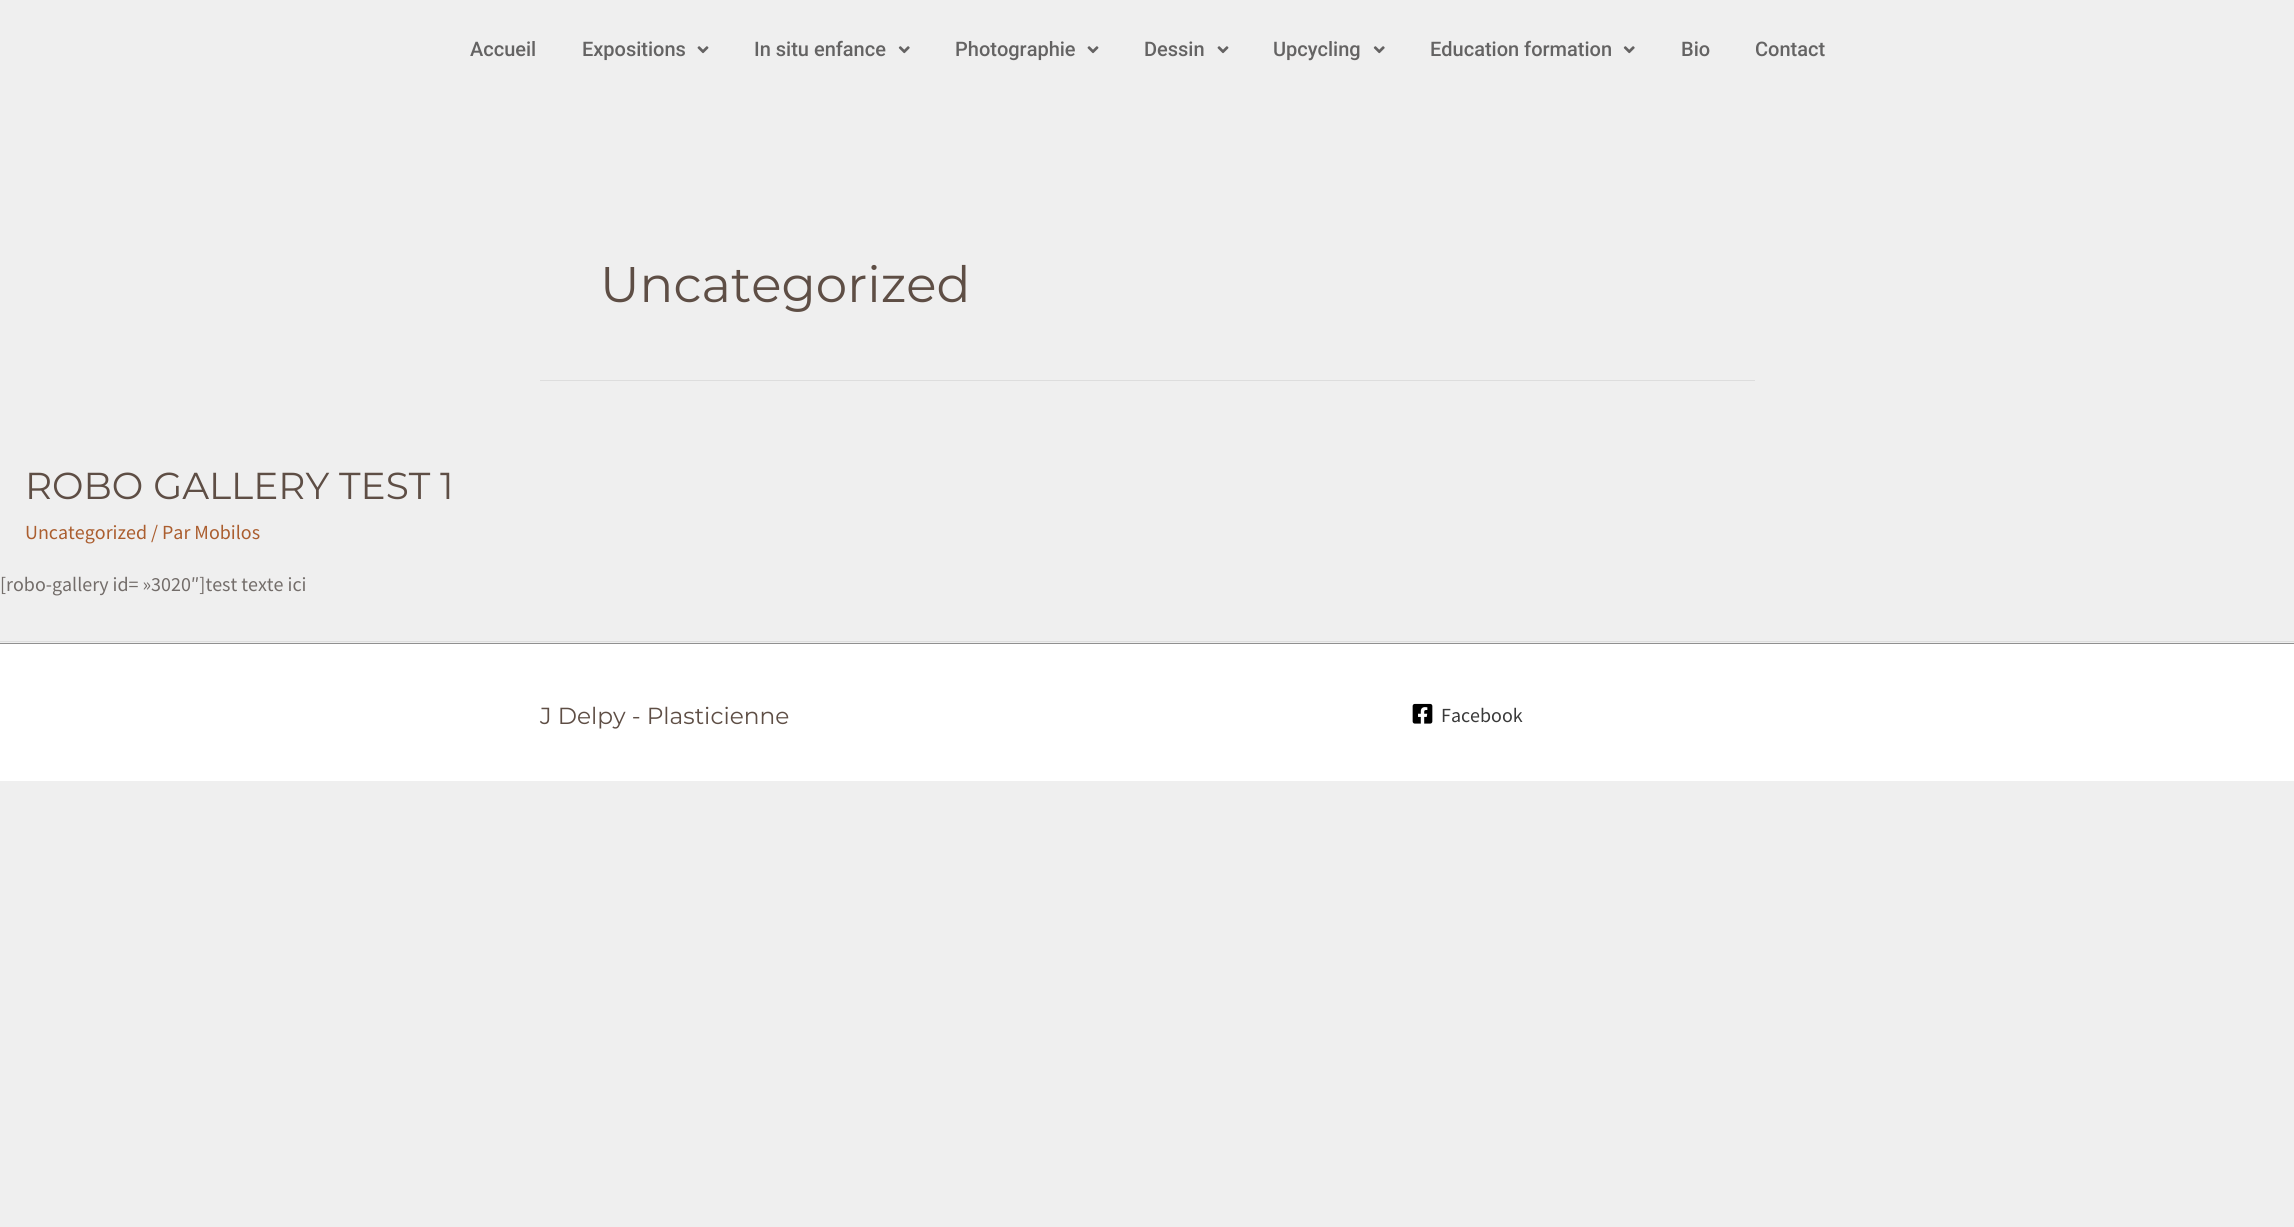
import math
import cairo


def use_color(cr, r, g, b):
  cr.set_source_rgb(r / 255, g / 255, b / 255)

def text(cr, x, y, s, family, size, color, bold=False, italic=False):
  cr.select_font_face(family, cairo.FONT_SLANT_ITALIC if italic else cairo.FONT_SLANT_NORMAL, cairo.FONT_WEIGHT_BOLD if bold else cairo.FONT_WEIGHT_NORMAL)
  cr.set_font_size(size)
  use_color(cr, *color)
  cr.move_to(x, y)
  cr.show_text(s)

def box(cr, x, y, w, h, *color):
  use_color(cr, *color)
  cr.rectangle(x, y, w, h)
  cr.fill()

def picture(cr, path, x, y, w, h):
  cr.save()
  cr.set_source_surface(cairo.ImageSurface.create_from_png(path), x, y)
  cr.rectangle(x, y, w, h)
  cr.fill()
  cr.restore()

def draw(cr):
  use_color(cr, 239, 239, 239)
  cr.paint()
  picture(cr, "img_01.png", 697, 46, 12, 8)
  picture(cr, "img_02.png", 898, 46, 12, 8)
  picture(cr, "img_01.png", 1087, 46, 12, 8)
  picture(cr, "img_01.png", 1217, 46, 12, 8)
  picture(cr, "img_02.png", 1373, 46, 12, 8)
  picture(cr, "img_02.png", 1623, 46, 12, 8)
  box(cr, 540, 380, 1215, 1, 221, 221, 221)
  box(cr, 0, 641, 2294, 1, 221, 221, 221)
  box(cr, 0, 644, 2294, 137, 255, 255, 255)
  box(cr, 0, 643, 2294, 1, 144, 144, 144)
  picture(cr, "img_03.png", 1412, 703, 21, 21)
  text(cr, 470, 56, "Accueil", "Roboto Medium", 20, (100, 99, 99))
  text(cr, 582, 56, "Expositions", "Roboto Medium", 20, (100, 99, 99))
  text(cr, 754, 56, "In situ enfance", "Roboto Medium", 20, (100, 99, 99))
  text(cr, 955, 56, "Photographie", "Roboto Medium", 20, (100, 99, 99))
  text(cr, 1144, 56, "Dessin", "Roboto Medium", 20, (100, 99, 99))
  text(cr, 1273, 56, "Upcycling", "Roboto Medium", 20, (100, 99, 99))
  text(cr, 1430, 56, "Education formation", "Roboto Medium", 20, (100, 99, 99))
  text(cr, 1681, 56, "Bio", "Roboto Medium", 20, (100, 99, 99))
  text(cr, 1755, 56, "Contact", "Roboto Medium", 20, (100, 99, 99))
  text(cr, 600, 302, "Uncategorized", "Montserrat", 50, (94, 78, 69))
  text(cr, 25, 499, "ROBO GALLERY TEST 1", "Montserrat", 37.5, (94, 78, 69))
  text(cr, 25, 539, "Uncategorized / Par Mobilos", "Source Sans Pro", 20, (171, 94, 47))
  text(cr, 0, 591, "[robo-gallery id= »3020″]test texte ici", "Source Sans Pro", 20, (115, 109, 106))
  text(cr, 540, 724, "J Delpy - Plasticienne", "Montserrat", 23.25, (94, 78, 69))
  text(cr, 1441, 722, "Facebook", "Source Sans Pro", 20, (58, 58, 58))


surface = cairo.ImageSurface(cairo.FORMAT_RGB24, 2294, 1227)
cr = cairo.Context(surface)
options = cairo.FontOptions()
options.set_hint_metrics(cairo.HINT_METRICS_OFF)
options.set_hint_style(cairo.HINT_STYLE_NONE)
cr.set_font_options(options)
cr.set_miter_limit(4)
draw(cr)
surface.write_to_png("out.png")
